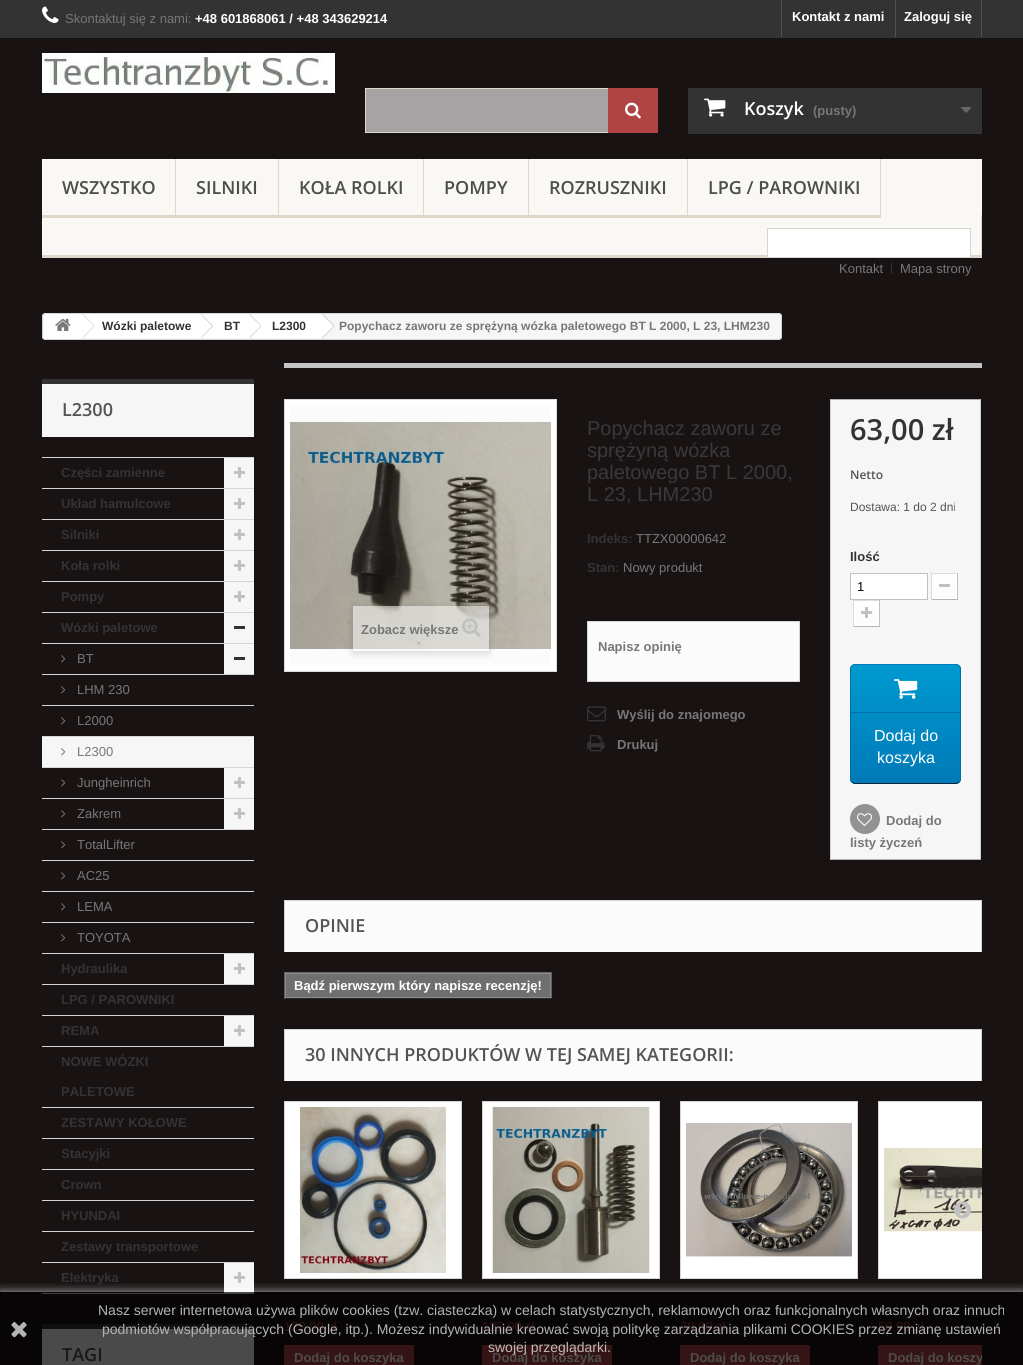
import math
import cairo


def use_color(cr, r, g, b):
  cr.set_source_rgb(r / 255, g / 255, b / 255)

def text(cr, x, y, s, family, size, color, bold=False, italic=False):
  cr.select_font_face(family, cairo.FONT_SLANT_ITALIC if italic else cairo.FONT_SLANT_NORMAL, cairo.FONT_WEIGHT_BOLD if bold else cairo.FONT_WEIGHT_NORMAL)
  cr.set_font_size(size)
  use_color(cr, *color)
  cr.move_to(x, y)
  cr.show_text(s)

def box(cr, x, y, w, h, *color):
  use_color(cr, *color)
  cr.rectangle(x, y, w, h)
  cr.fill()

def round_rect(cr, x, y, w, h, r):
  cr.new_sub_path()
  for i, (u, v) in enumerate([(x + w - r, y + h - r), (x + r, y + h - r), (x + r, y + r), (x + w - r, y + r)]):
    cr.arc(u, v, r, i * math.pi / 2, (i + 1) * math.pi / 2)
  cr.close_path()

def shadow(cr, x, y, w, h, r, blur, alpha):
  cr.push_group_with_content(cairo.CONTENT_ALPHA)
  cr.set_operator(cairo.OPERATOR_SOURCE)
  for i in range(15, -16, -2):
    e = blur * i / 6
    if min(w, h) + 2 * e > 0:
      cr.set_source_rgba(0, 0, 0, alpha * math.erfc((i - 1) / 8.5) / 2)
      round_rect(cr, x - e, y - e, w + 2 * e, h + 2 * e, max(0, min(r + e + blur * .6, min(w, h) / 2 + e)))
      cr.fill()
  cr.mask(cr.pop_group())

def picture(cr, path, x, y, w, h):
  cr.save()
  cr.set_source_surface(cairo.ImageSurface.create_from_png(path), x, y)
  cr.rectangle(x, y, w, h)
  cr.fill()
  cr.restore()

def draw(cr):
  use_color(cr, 24, 18, 18)
  cr.paint()
  box(cr, 0, 1292, 1023, 73, 7, 5, 5)
  box(cr, 0, 0, 1023, 38, 51, 51, 51)
  picture(cr, "img_01.png", 42, 6, 17, 17)
  box(cr, 781, 0, 1, 37, 81, 81, 81)
  box(cr, 981, 0, 1, 37, 81, 81, 81)
  box(cr, 895, 0, 1, 37, 81, 81, 81)
  picture(cr, "img_02.png", 42, 53, 293, 40)
  box(cr, 366, 89, 242, 43, 165, 163, 163)
  cr.rectangle(365.5, 88.5, 292, 44)
  use_color(cr, 223, 216, 202)
  cr.set_line_width(1)
  cr.stroke()
  box(cr, 608, 88, 50, 45, 176, 68, 69)
  picture(cr, "img_03.png", 625, 102, 16, 17)
  box(cr, 688, 88, 294, 46, 51, 51, 51)
  picture(cr, "img_04.png", 704, 98, 22, 19)
  picture(cr, "img_05.png", 961, 107, 11, 6)
  box(cr, 42, 159, 940, 96, 250, 248, 244)
  box(cr, 42, 255, 940, 3, 223, 216, 202)
  box(cr, 175, 159, 1, 59, 223, 216, 202)
  box(cr, 42, 215, 133, 3, 223, 216, 202)
  box(cr, 278, 159, 1, 59, 223, 216, 202)
  box(cr, 176, 215, 102, 3, 223, 216, 202)
  box(cr, 423, 159, 1, 59, 223, 216, 202)
  box(cr, 279, 215, 144, 3, 223, 216, 202)
  box(cr, 528, 159, 1, 59, 223, 216, 202)
  box(cr, 424, 215, 104, 3, 223, 216, 202)
  box(cr, 687, 159, 1, 59, 223, 216, 202)
  box(cr, 529, 215, 158, 3, 223, 216, 202)
  box(cr, 880, 159, 1, 59, 223, 216, 202)
  box(cr, 688, 215, 192, 3, 223, 216, 202)
  box(cr, 981, 215, 1, 43, 223, 216, 202)
  use_color(cr, 255, 255, 255)
  cr.rectangle(767.5, 228.5, 203, 29)
  cr.fill_preserve()
  use_color(cr, 214, 212, 212)
  cr.stroke()
  box(cr, 891, 263, 1, 11, 51, 51, 51)
  use_color(cr, 246, 246, 246)
  round_rect(cr, 42.5, 313.5, 739, 26, 2.5)
  cr.fill_preserve()
  use_color(cr, 214, 212, 212)
  cr.stroke()
  use_color(cr, 255, 255, 255)
  cr.new_path()
  cr.move_to(47, 314)
  cr.line_to(82, 314)
  cr.line_to(82, 339)
  cr.line_to(47, 339)
  cr.curve_to(45.5, 339, 44, 337.5, 44, 336)
  cr.line_to(44, 317)
  cr.curve_to(44, 315.5, 45.5, 314, 47, 314)
  cr.close_path()
  cr.fill()
  picture(cr, "img_06.png", 55, 318, 16, 13)
  box(cr, 82, 314, 120, 24, 255, 255, 255)
  use_color(cr, 214, 212, 212)
  cr.new_path()
  cr.move_to(83, 314)
  cr.line_to(94.5, 325.5)
  cr.line_to(94, 326)
  cr.line_to(82.5, 314.5)
  cr.close_path()
  cr.move_to(94, 326)
  cr.line_to(94.5, 326.5)
  cr.line_to(83, 338)
  cr.line_to(82.5, 337.5)
  cr.close_path()
  cr.fill()
  use_color(cr, 255, 255, 255)
  cr.new_path()
  cr.move_to(209, 314.5)
  cr.line_to(219, 324.5)
  cr.curve_to(219.5, 325.5, 219.5, 326.5, 219, 327.5)
  cr.line_to(209, 337.5)
  cr.curve_to(208, 338, 207, 338, 206, 337.5)
  cr.line_to(196, 327.5)
  cr.curve_to(195.5, 326.5, 195.5, 325.5, 196, 324.5)
  cr.line_to(206, 314.5)
  cr.curve_to(207, 314, 208, 314, 209, 314.5)
  cr.close_path()
  cr.fill()
  box(cr, 202, 314, 48, 24, 255, 255, 255)
  use_color(cr, 214, 212, 212)
  cr.new_path()
  cr.move_to(201.5, 314)
  cr.line_to(213, 325.5)
  cr.line_to(212, 326)
  cr.line_to(201, 314.5)
  cr.close_path()
  cr.move_to(212, 326)
  cr.line_to(213, 326.5)
  cr.line_to(201.5, 338)
  cr.line_to(201, 337.5)
  cr.close_path()
  cr.fill()
  use_color(cr, 255, 255, 255)
  cr.new_path()
  cr.move_to(257.5, 314.5)
  cr.line_to(267, 324.5)
  cr.curve_to(268, 325.5, 268, 326.5, 267, 327.5)
  cr.line_to(257.5, 337.5)
  cr.curve_to(256.5, 338, 255, 338, 254.5, 337.5)
  cr.line_to(244.5, 327.5)
  cr.curve_to(244, 326.5, 244, 325.5, 244.5, 324.5)
  cr.line_to(254.5, 314.5)
  cr.curve_to(255, 314, 256.5, 314, 257.5, 314.5)
  cr.close_path()
  cr.fill()
  box(cr, 250, 314, 71, 24, 255, 255, 255)
  use_color(cr, 214, 212, 212)
  cr.new_path()
  cr.move_to(250, 314)
  cr.line_to(261, 325.5)
  cr.line_to(260.5, 326)
  cr.line_to(249, 314.5)
  cr.close_path()
  cr.move_to(260.5, 326)
  cr.line_to(261, 326.5)
  cr.line_to(250, 338)
  cr.line_to(249, 337.5)
  cr.close_path()
  cr.fill()
  use_color(cr, 255, 255, 255)
  cr.new_path()
  cr.move_to(323.5, 314.5)
  cr.line_to(333.5, 324.5)
  cr.curve_to(334.5, 325.5, 334.5, 326.5, 333.5, 327.5)
  cr.line_to(323.5, 337.5)
  cr.curve_to(323, 338, 321.5, 338, 321, 337.5)
  cr.line_to(311, 327.5)
  cr.curve_to(310, 326.5, 310, 325.5, 311, 324.5)
  cr.line_to(321, 314.5)
  cr.curve_to(321.5, 314, 323, 314, 323.5, 314.5)
  cr.close_path()
  cr.fill()
  use_color(cr, 214, 212, 212)
  cr.new_path()
  cr.move_to(323, 314)
  cr.line_to(334.5, 325.5)
  cr.line_to(333.5, 326)
  cr.line_to(322, 314.5)
  cr.close_path()
  cr.move_to(333.5, 326)
  cr.line_to(334.5, 326.5)
  cr.line_to(323, 338)
  cr.line_to(322, 337.5)
  cr.close_path()
  cr.fill()
  box(cr, 42, 384, 212, 53, 246, 246, 246)
  box(cr, 42, 379, 212, 5, 51, 51, 51)
  box(cr, 42, 457, 212, 1, 214, 212, 212)
  box(cr, 42, 488, 212, 1, 214, 212, 212)
  box(cr, 224, 458, 30, 30, 246, 246, 246)
  picture(cr, "img_07.png", 234, 467, 11, 11)
  box(cr, 42, 519, 212, 1, 214, 212, 212)
  box(cr, 224, 489, 30, 30, 246, 246, 246)
  picture(cr, "img_07.png", 234, 498, 11, 11)
  box(cr, 42, 550, 212, 1, 214, 212, 212)
  box(cr, 224, 520, 30, 30, 246, 246, 246)
  picture(cr, "img_07.png", 234, 529, 11, 11)
  box(cr, 42, 581, 212, 1, 214, 212, 212)
  box(cr, 224, 551, 30, 30, 246, 246, 246)
  picture(cr, "img_07.png", 234, 560, 11, 11)
  box(cr, 42, 612, 212, 1, 214, 212, 212)
  box(cr, 224, 582, 30, 30, 246, 246, 246)
  picture(cr, "img_07.png", 234, 591, 11, 11)
  box(cr, 42, 643, 212, 1, 214, 212, 212)
  box(cr, 224, 613, 30, 30, 246, 246, 246)
  box(cr, 234, 626, 11, 3, 51, 51, 51)
  box(cr, 42, 674, 212, 1, 214, 212, 212)
  picture(cr, "img_08.png", 61, 655, 5, 8)
  box(cr, 224, 644, 30, 30, 246, 246, 246)
  box(cr, 234, 657, 11, 3, 51, 51, 51)
  box(cr, 42, 705, 212, 1, 214, 212, 212)
  picture(cr, "img_08.png", 61, 686, 5, 8)
  box(cr, 42, 736, 212, 1, 214, 212, 212)
  picture(cr, "img_08.png", 61, 717, 5, 8)
  box(cr, 42, 737, 212, 30, 246, 246, 246)
  box(cr, 42, 767, 212, 1, 214, 212, 212)
  picture(cr, "img_09.png", 61, 748, 5, 8)
  box(cr, 42, 798, 212, 1, 214, 212, 212)
  picture(cr, "img_08.png", 61, 779, 5, 8)
  box(cr, 224, 768, 30, 30, 246, 246, 246)
  picture(cr, "img_07.png", 234, 777, 11, 11)
  box(cr, 42, 829, 212, 1, 214, 212, 212)
  picture(cr, "img_08.png", 61, 810, 5, 8)
  box(cr, 224, 799, 30, 30, 246, 246, 246)
  picture(cr, "img_07.png", 234, 808, 11, 11)
  box(cr, 42, 860, 212, 1, 214, 212, 212)
  picture(cr, "img_08.png", 61, 841, 5, 8)
  box(cr, 42, 891, 212, 1, 214, 212, 212)
  picture(cr, "img_08.png", 61, 872, 5, 8)
  box(cr, 42, 922, 212, 1, 214, 212, 212)
  picture(cr, "img_08.png", 61, 903, 5, 8)
  box(cr, 42, 953, 212, 1, 214, 212, 212)
  picture(cr, "img_08.png", 61, 934, 5, 8)
  box(cr, 42, 984, 212, 1, 214, 212, 212)
  box(cr, 224, 954, 30, 30, 246, 246, 246)
  picture(cr, "img_07.png", 234, 963, 11, 11)
  box(cr, 42, 1015, 212, 1, 214, 212, 212)
  box(cr, 42, 1046, 212, 1, 214, 212, 212)
  box(cr, 224, 1016, 30, 30, 246, 246, 246)
  picture(cr, "img_07.png", 234, 1025, 11, 11)
  box(cr, 42, 1107, 212, 1, 214, 212, 212)
  box(cr, 42, 1138, 212, 1, 214, 212, 212)
  box(cr, 42, 1169, 212, 1, 214, 212, 212)
  box(cr, 42, 1200, 212, 1, 214, 212, 212)
  box(cr, 42, 1231, 212, 1, 214, 212, 212)
  box(cr, 42, 1262, 212, 1, 214, 212, 212)
  box(cr, 42, 1293, 212, 1, 64, 64, 64)
  box(cr, 224, 1263, 30, 29, 246, 246, 246)
  box(cr, 224, 1292, 30, 1, 74, 74, 74)
  picture(cr, "img_07.png", 234, 1272, 11, 11)
  box(cr, 42, 1329, 212, 36, 74, 74, 74)
  box(cr, 42, 1324, 212, 5, 15, 15, 15)
  box(cr, 284, 363, 698, 5, 196, 196, 196)
  use_color(cr, 255, 255, 255)
  cr.rectangle(284.5, 399.5, 272, 272)
  cr.fill_preserve()
  use_color(cr, 219, 219, 219)
  cr.stroke()
  box(cr, 290, 405, 261, 261, 251, 251, 251)
  picture(cr, "img_10.png", 290, 422, 261, 227)
  cr.save()
  cr.set_fill_rule(cairo.FILL_RULE_EVEN_ODD)
  cr.new_path()
  cr.move_to(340, 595)
  cr.line_to(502, 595)
  cr.line_to(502, 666)
  cr.line_to(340, 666)
  cr.close_path()
  cr.move_to(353, 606)
  cr.line_to(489, 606)
  cr.line_to(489, 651)
  cr.line_to(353, 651)
  cr.close_path()
  cr.clip()
  use_color(cr, 0, 0, 0)
  shadow(cr, 353, 608, 136, 45, 0, 4, 0.16)
  cr.restore()
  cr.set_source_rgba(1, 1, 1, 0.5)
  cr.rectangle(353, 606, 136, 43)
  cr.fill()
  picture(cr, "img_11.png", 462, 618, 19, 19)
  use_color(cr, 251, 251, 251)
  cr.rectangle(587.5, 621.5, 212, 60)
  cr.fill_preserve()
  use_color(cr, 214, 212, 212)
  cr.stroke()
  picture(cr, "img_12.png", 587, 706, 19, 16)
  picture(cr, "img_13.png", 587, 735, 18, 17)
  box(cr, 831, 400, 149, 459, 246, 246, 246)
  box(cr, 830, 399, 151, 1, 176, 175, 175)
  box(cr, 980, 399, 1, 461, 210, 208, 208)
  box(cr, 830, 859, 151, 1, 176, 175, 175)
  box(cr, 830, 399, 1, 461, 210, 208, 208)
  use_color(cr, 255, 255, 255)
  cr.rectangle(850.5, 573.5, 77, 26)
  cr.fill_preserve()
  use_color(cr, 189, 194, 201)
  cr.stroke()
  box(cr, 931, 573, 27, 1, 222, 220, 220)
  box(cr, 957, 573, 1, 27, 193, 191, 191)
  box(cr, 931, 599, 27, 1, 181, 180, 180)
  box(cr, 931, 573, 1, 27, 218, 216, 216)
  gradient = cairo.LinearGradient(945, 575, 945, 598)
  gradient.add_color_stop_rgba(0, 1, 1, 1, 1)
  gradient.add_color_stop_rgba(1, 0.984, 0.984, 0.984, 1)
  cr.set_source(gradient)
  cr.rectangle(933, 575, 23, 23)
  cr.fill()
  cr.rectangle(932.5, 574.5, 24, 24)
  use_color(cr, 255, 255, 255)
  cr.stroke()
  box(cr, 939, 584, 11, 3, 192, 192, 192)
  box(cr, 853, 600, 27, 1, 222, 220, 220)
  box(cr, 879, 600, 1, 27, 193, 191, 191)
  box(cr, 853, 626, 27, 1, 181, 180, 180)
  box(cr, 853, 600, 1, 27, 218, 216, 216)
  gradient = cairo.LinearGradient(867, 602, 867, 625)
  gradient.add_color_stop_rgba(0, 1, 1, 1, 1)
  gradient.add_color_stop_rgba(1, 0.984, 0.984, 0.984, 1)
  cr.set_source(gradient)
  cr.rectangle(855, 602, 23, 23)
  cr.fill()
  cr.rectangle(854.5, 601.5, 24, 24)
  use_color(cr, 255, 255, 255)
  cr.stroke()
  picture(cr, "img_14.png", 861, 607, 11, 11)
  cr.save()
  round_rect(cr, 850, 664, 111, 120, 5)
  cr.clip()
  gradient = cairo.LinearGradient(906, 547, 906, 665)
  gradient.add_color_stop_rgba(0, 0, 0.604, 0.816, 1)
  gradient.add_color_stop_rgba(1, 0, 0.478, 0.718, 1)
  cr.set_source(gradient)
  cr.rectangle(850, 664, 111, 1)
  cr.fill()
  gradient = cairo.LinearGradient(906, 665, 906, 783)
  gradient.add_color_stop_rgba(0, 0, 0.604, 0.816, 1)
  gradient.add_color_stop_rgba(1, 0, 0.478, 0.718, 1)
  cr.set_source(gradient)
  cr.rectangle(850, 665, 111, 118)
  cr.fill()
  gradient = cairo.LinearGradient(906, 783, 906, 901)
  gradient.add_color_stop_rgba(0, 0, 0.604, 0.816, 1)
  gradient.add_color_stop_rgba(1, 0, 0.478, 0.718, 1)
  cr.set_source(gradient)
  cr.rectangle(850, 783, 111, 1)
  cr.fill()
  cr.restore()
  cr.new_path()
  cr.move_to(852, 666)
  cr.line_to(854.5, 664.5)
  cr.line_to(956.5, 664.5)
  cr.line_to(959, 666)
  use_color(cr, 0, 121, 182)
  cr.stroke()
  cr.new_path()
  cr.move_to(959, 666)
  cr.curve_to(960, 666.5, 960.5, 668, 960.5, 669)
  cr.line_to(960.5, 779)
  cr.curve_to(960.5, 780, 960, 781.5, 959, 782)
  use_color(cr, 0, 111, 168)
  cr.stroke()
  cr.new_path()
  cr.move_to(959, 782)
  cr.line_to(956.5, 783.5)
  cr.line_to(854.5, 783.5)
  cr.line_to(852, 782)
  use_color(cr, 1, 39, 64)
  cr.stroke()
  cr.new_path()
  cr.move_to(852, 782)
  cr.curve_to(851, 781.5, 850.5, 780, 850.5, 779)
  cr.line_to(850.5, 669)
  cr.curve_to(850.5, 668, 851, 666.5, 852, 666)
  use_color(cr, 0, 111, 168)
  cr.stroke()
  picture(cr, "img_15.png", 894, 679, 24, 20)
  box(cr, 851, 712, 109, 1, 0, 111, 168)
  use_color(cr, 146, 146, 146)
  cr.arc(865, 819, 15, 0, 2 * math.pi)
  cr.fill()
  picture(cr, "img_16.png", 857, 813, 15, 13)
  box(cr, 285, 901, 696, 51, 251, 251, 251)
  box(cr, 284, 900, 698, 1, 214, 212, 212)
  box(cr, 981, 900, 1, 52, 214, 212, 212)
  box(cr, 284, 900, 1, 52, 214, 212, 212)
  box(cr, 284, 972, 268, 1, 102, 102, 102)
  box(cr, 551, 972, 1, 27, 95, 95, 95)
  box(cr, 284, 998, 268, 1, 41, 41, 41)
  box(cr, 284, 972, 1, 27, 95, 95, 95)
  use_color(cr, 111, 111, 111)
  cr.rectangle(285.5, 973.5, 265, 24)
  cr.fill_preserve()
  use_color(cr, 139, 138, 138)
  cr.stroke()
  box(cr, 285, 1030, 696, 51, 251, 251, 251)
  box(cr, 284, 1029, 698, 1, 214, 212, 212)
  box(cr, 981, 1029, 1, 52, 214, 212, 212)
  box(cr, 284, 1029, 1, 52, 214, 212, 212)
  box(cr, 879, 1102, 103, 176, 255, 255, 255)
  cr.save()
  cr.rectangle(284, 1101, 698, 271)
  cr.clip()
  cr.rectangle(878.5, 1101.5, 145, 177)
  use_color(cr, 214, 212, 212)
  cr.stroke()
  cr.restore()
  picture(cr, "img_21.png", 884, 1147, 98, 86)
  picture(cr, "img_17.png", 954, 1201, 18, 18)
  cr.rectangle(284.5, 1101.5, 177, 177)
  cr.fill_preserve()
  use_color(cr, 214, 212, 212)
  cr.stroke()
  picture(cr, "img_18.png", 299, 1107, 148, 166)
  cr.rectangle(284.5, 1345.5, 129, 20)
  use_color(cr, 53, 20, 21)
  cr.stroke()
  box(cr, 285, 1346, 128, 19, 53, 20, 21)
  use_color(cr, 255, 255, 255)
  cr.rectangle(482.5, 1101.5, 177, 177)
  cr.fill_preserve()
  use_color(cr, 214, 212, 212)
  cr.stroke()
  picture(cr, "img_19.png", 488, 1107, 162, 166)
  cr.rectangle(482.5, 1345.5, 129, 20)
  use_color(cr, 53, 20, 21)
  cr.stroke()
  box(cr, 483, 1346, 128, 19, 53, 20, 21)
  use_color(cr, 255, 255, 255)
  cr.rectangle(680.5, 1101.5, 177, 177)
  cr.fill_preserve()
  use_color(cr, 214, 212, 212)
  cr.stroke()
  picture(cr, "img_20.png", 686, 1123, 166, 134)
  cr.rectangle(680.5, 1345.5, 129, 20)
  use_color(cr, 53, 20, 21)
  cr.stroke()
  box(cr, 681, 1346, 128, 19, 53, 20, 21)
  cr.save()
  cr.rectangle(284, 1101, 698, 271)
  cr.clip()
  cr.rectangle(878.5, 1345.5, 129, 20)
  cr.stroke()
  cr.restore()
  box(cr, 879, 1346, 103, 19, 53, 20, 21)
  cr.save()
  cr.rectangle(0, 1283, 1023, 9)
  cr.clip()
  use_color(cr, 255, 255, 255)
  shadow(cr, 0, 1292, 1023, 73, 0, 5, 0.7)
  cr.restore()
  picture(cr, "img_22.png", 11, 1322, 16, 16)
  text(cr, 65, 23, "Skontaktuj się z nami:", "Liberation Sans", 13, (119, 119, 119))
  text(cr, 195, 23, "+48 601868061 / +48 343629214", "Liberation Sans", 13, (255, 255, 255), bold=True)
  text(cr, 792, 21, "Kontakt z nami", "Liberation Sans", 13, (255, 255, 255), bold=True)
  text(cr, 904, 21, "Zaloguj się", "Liberation Sans", 13, (255, 255, 255), bold=True)
  text(cr, 744, 115, "Koszyk", "Open Sans SemiBold", 18, (255, 255, 255))
  text(cr, 813, 115, "(pusty)", "Liberation Sans", 13, (119, 119, 119), bold=True)
  text(cr, 62, 194, "WSZYSTKO", "Open Sans SemiBold", 18, (77, 77, 77))
  text(cr, 196, 194, "SILNIKI", "Open Sans SemiBold", 18, (77, 77, 77))
  text(cr, 299, 194, "KOŁA ROLKI", "Open Sans SemiBold", 18, (77, 77, 77))
  text(cr, 444, 194, "POMPY", "Open Sans SemiBold", 18, (77, 77, 77))
  text(cr, 549, 194, "ROZRUSZNIKI", "Open Sans SemiBold", 18, (77, 77, 77))
  text(cr, 708, 194, "LPG / PAROWNIKI", "Open Sans SemiBold", 18, (77, 77, 77))
  text(cr, 839, 273, "Kontakt", "Liberation Sans", 13, (119, 119, 119))
  text(cr, 900, 273, "Mapa strony", "Liberation Sans", 13, (119, 119, 119))
  text(cr, 102, 330, "Wózki paletowe", "Liberation Sans", 12, (51, 51, 51), bold=True)
  text(cr, 224, 330, "BT", "Liberation Sans", 12, (51, 51, 51), bold=True)
  text(cr, 272, 330, "L2300", "Liberation Sans", 12, (51, 51, 51), bold=True)
  text(cr, 339, 330, "Popychacz zaworu ze sprężyną wózka paletowego BT L 2000, L 23, LHM230", "Liberation Sans", 12, (119, 119, 119), bold=True)
  text(cr, 62, 416, "L2300", "Open Sans SemiBold", 18, (85, 84, 84))
  text(cr, 61, 477, "Części zamienne", "Liberation Sans", 13, (51, 51, 51), bold=True)
  text(cr, 61, 508, "Układ hamulcowe", "Liberation Sans", 13, (51, 51, 51), bold=True)
  text(cr, 61, 539, "Silniki", "Liberation Sans", 13, (51, 51, 51), bold=True)
  text(cr, 61, 570, "Koła rolki", "Liberation Sans", 13, (51, 51, 51), bold=True)
  text(cr, 61, 601, "Pompy", "Liberation Sans", 13, (51, 51, 51), bold=True)
  text(cr, 61, 632, "Wózki paletowe", "Liberation Sans", 13, (51, 51, 51), bold=True)
  text(cr, 77, 663, "BT", "Liberation Sans", 13, (119, 119, 119))
  text(cr, 77, 694, "LHM 230", "Liberation Sans", 13, (119, 119, 119))
  text(cr, 77, 725, "L2000", "Liberation Sans", 13, (119, 119, 119))
  text(cr, 77, 756, "L2300", "Liberation Sans", 13, (119, 119, 119))
  text(cr, 77, 787, "Jungheinrich", "Liberation Sans", 13, (119, 119, 119))
  text(cr, 77, 818, "Zakrem", "Liberation Sans", 13, (119, 119, 119))
  text(cr, 77, 849, "TotalLifter", "Liberation Sans", 13, (119, 119, 119))
  text(cr, 77, 880, "AC25", "Liberation Sans", 13, (119, 119, 119))
  text(cr, 77, 911, "LEMA", "Liberation Sans", 13, (119, 119, 119))
  text(cr, 77, 942, "TOYOTA", "Liberation Sans", 13, (119, 119, 119))
  text(cr, 61, 973, "Hydraulika", "Liberation Sans", 13, (51, 51, 51), bold=True)
  text(cr, 61, 1004, "LPG / PAROWNIKI", "Liberation Sans", 13, (51, 51, 51), bold=True)
  text(cr, 61, 1035, "REMA", "Liberation Sans", 13, (51, 51, 51), bold=True)
  text(cr, 61, 1066, "NOWE WÓZKI", "Liberation Sans", 13, (51, 51, 51), bold=True)
  text(cr, 61, 1096, "PALETOWE", "Liberation Sans", 13, (51, 51, 51), bold=True)
  text(cr, 61, 1127, "ZESTAWY KOŁOWE", "Liberation Sans", 13, (51, 51, 51), bold=True)
  text(cr, 61, 1158, "Stacyjki", "Liberation Sans", 13, (51, 51, 51), bold=True)
  text(cr, 61, 1189, "Crown", "Liberation Sans", 13, (51, 51, 51), bold=True)
  text(cr, 61, 1220, "HYUNDAI", "Liberation Sans", 13, (51, 51, 51), bold=True)
  text(cr, 61, 1251, "Zestawy transportowe", "Liberation Sans", 13, (51, 51, 51), bold=True)
  text(cr, 61, 1282, "Elektryka", "Liberation Sans", 13, (51, 51, 51), bold=True)
  text(cr, 62, 1361, "TAGI", "Open Sans SemiBold", 18, (26, 25, 25))
  text(cr, 361, 634, "Zobacz większe", "Liberation Sans", 13, (119, 119, 119), bold=True)
  text(cr, 587, 435, "Popychacz zaworu ze", "Liberation Sans", 20, (58, 57, 57))
  text(cr, 587, 457, "sprężyną wózka", "Liberation Sans", 20, (58, 57, 57))
  text(cr, 587, 479, "paletowego BT L 2000,", "Liberation Sans", 20, (58, 57, 57))
  text(cr, 587, 501, "L 23, LHM230", "Liberation Sans", 20, (58, 57, 57))
  text(cr, 587, 543, "Indeks:", "Liberation Sans", 13, (51, 51, 51), bold=True)
  text(cr, 636, 543, "TTZX00000642", "Liberation Sans", 13, (119, 119, 119))
  text(cr, 587, 572, "Stan:", "Liberation Sans", 13, (51, 51, 51), bold=True)
  text(cr, 623, 572, "Nowy produkt", "Liberation Sans", 13, (119, 119, 119))
  text(cr, 598, 651, "Napisz opinię", "Liberation Sans", 13, (119, 119, 119), bold=True)
  text(cr, 617, 719, "Wyślij do znajomego", "Liberation Sans", 13, (119, 119, 119), bold=True)
  text(cr, 617, 749, "Drukuj", "Liberation Sans", 13, (119, 119, 119), bold=True)
  text(cr, 850, 440, "63,00 zł", "Open Sans SemiBold", 29, (51, 51, 51))
  text(cr, 850, 479, "Netto", "Open Sans SemiBold", 12, (85, 84, 84))
  text(cr, 850, 511, "Dostawa: 1 do 2 dni", "Liberation Sans", 12, (85, 84, 84))
  text(cr, 850, 561, "Ilość", "Liberation Sans", 13, (51, 51, 51), bold=True)
  text(cr, 857, 591, "1", "Liberation Sans", 13, (0, 0, 0))
  text(cr, 874, 741, "Dodaj do", "Liberation Sans", 16, (255, 255, 255))
  text(cr, 877, 763, "koszyka", "Liberation Sans", 16, (255, 255, 255))
  text(cr, 886, 825, "Dodaj do", "Liberation Sans", 13, (119, 119, 119), bold=True)
  text(cr, 850, 847, "listy życzeń", "Liberation Sans", 13, (119, 119, 119), bold=True)
  text(cr, 305, 932, "OPINIE", "Open Sans SemiBold", 18, (85, 84, 84))
  text(cr, 294, 990, "Bądź pierwszym który napisze recenzję!", "Liberation Sans", 13, (255, 255, 255), bold=True)
  text(cr, 305, 1061, "30 INNYCH PRODUKTÓW W TEJ SAMEJ KATEGORII:", "Open Sans SemiBold", 18, (85, 84, 84))
  text(cr, 284, 1331, "122,99 zł", "Liberation Sans", 13, (53, 20, 21))
  text(cr, 294, 1362, "Dodaj do koszyka", "Liberation Sans", 13, (77, 77, 77), bold=True)
  text(cr, 482, 1331, "122,00 zł", "Liberation Sans", 13, (53, 20, 21))
  text(cr, 492, 1362, "Dodaj do koszyka", "Liberation Sans", 13, (77, 77, 77), bold=True)
  text(cr, 680, 1331, "78,00 zł", "Liberation Sans", 13, (53, 20, 21))
  text(cr, 690, 1362, "Dodaj do koszyka", "Liberation Sans", 13, (77, 77, 77), bold=True)
  text(cr, 878, 1331, "50,90 zł", "Liberation Sans", 13, (53, 20, 21))
  cr.save()
  cr.rectangle(284, 1101, 698, 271)
  cr.clip()
  text(cr, 888, 1362, "Dodaj do koszy", "Liberation Sans", 13, (77, 77, 77), bold=True)
  cr.restore()
  text(cr, 98, 1315, "Nasz serwer internetowa używa plików cookies (tzw. ciasteczka) w celach statystycznych, reklamowych oraz funkcjonalnych własnych oraz innuch", "Liberation Sans", 14, (181, 180, 180))
  text(cr, 102, 1334, "podmiotów współpracujących (Google, itp.). Możesz indywidualnie kreować swoją politykę zarządzania plikami COOKIES przez zmianę ustawień", "Liberation Sans", 14, (181, 180, 180))
  text(cr, 488, 1352, "swojej przeglądarki.", "Liberation Sans", 14, (192, 184, 184))


surface = cairo.ImageSurface(cairo.FORMAT_RGB24, 1023, 1365)
cr = cairo.Context(surface)
options = cairo.FontOptions()
options.set_hint_metrics(cairo.HINT_METRICS_OFF)
options.set_hint_style(cairo.HINT_STYLE_NONE)
cr.set_font_options(options)
cr.set_miter_limit(4)
draw(cr)
surface.write_to_png("out.png")
